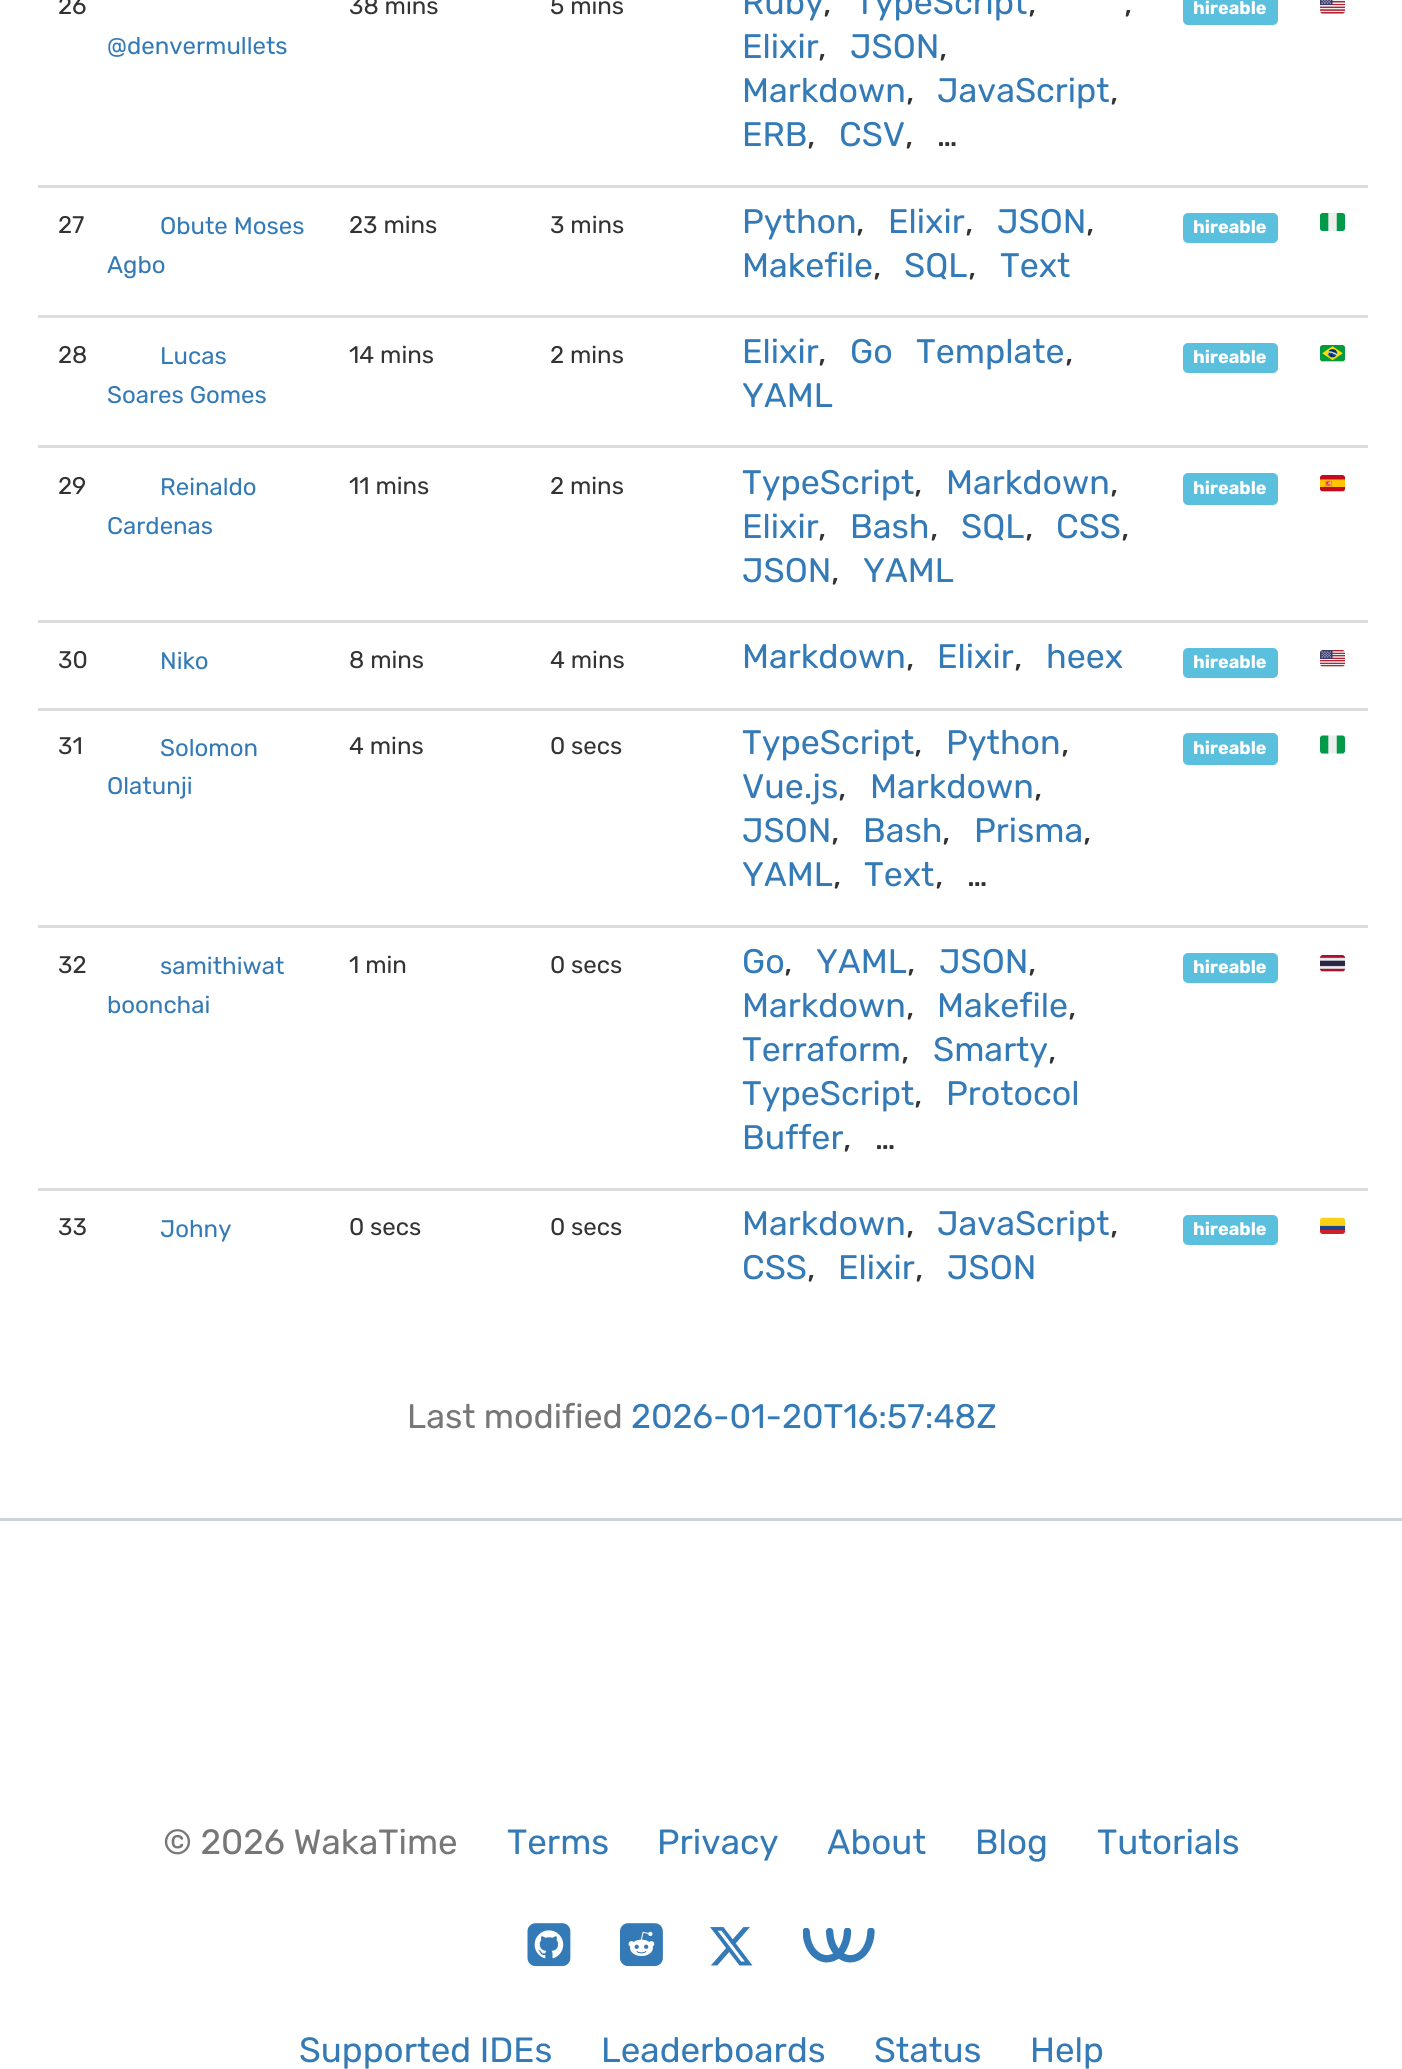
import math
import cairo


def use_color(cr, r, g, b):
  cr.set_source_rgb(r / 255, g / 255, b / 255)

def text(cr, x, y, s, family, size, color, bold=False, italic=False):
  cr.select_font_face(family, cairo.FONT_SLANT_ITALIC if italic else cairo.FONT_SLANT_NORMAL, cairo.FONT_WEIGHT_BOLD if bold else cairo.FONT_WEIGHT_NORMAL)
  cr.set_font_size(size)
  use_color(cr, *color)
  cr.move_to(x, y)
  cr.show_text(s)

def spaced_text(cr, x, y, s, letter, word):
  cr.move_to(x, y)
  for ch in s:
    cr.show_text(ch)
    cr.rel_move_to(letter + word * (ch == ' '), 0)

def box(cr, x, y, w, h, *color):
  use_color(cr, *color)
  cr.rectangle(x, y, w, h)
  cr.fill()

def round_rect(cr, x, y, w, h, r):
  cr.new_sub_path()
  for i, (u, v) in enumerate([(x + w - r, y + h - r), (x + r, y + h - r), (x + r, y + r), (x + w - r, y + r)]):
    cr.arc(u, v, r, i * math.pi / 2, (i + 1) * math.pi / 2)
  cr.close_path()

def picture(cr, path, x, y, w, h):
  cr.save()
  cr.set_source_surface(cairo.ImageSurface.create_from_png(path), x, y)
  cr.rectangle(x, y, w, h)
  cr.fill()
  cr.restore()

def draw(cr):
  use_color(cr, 255, 255, 255)
  cr.paint()
  use_color(cr, 91, 192, 222)
  round_rect(cr, 1183, -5, 95, 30, 5)
  cr.fill()
  picture(cr, "img_01.png", 1320, 0, 25, 14)
  box(cr, 38, 185, 1330, 3, 221, 221, 221)
  picture(cr, "img_02.png", 1320, 213, 25, 18)
  use_color(cr, 91, 192, 222)
  round_rect(cr, 1183, 213, 95, 30, 5)
  cr.fill()
  box(cr, 38, 315, 1330, 3, 221, 221, 221)
  picture(cr, "img_03.png", 1320, 345, 25, 17)
  use_color(cr, 91, 192, 222)
  round_rect(cr, 1183, 343, 95, 30, 5)
  cr.fill()
  box(cr, 38, 445, 1330, 3, 221, 221, 221)
  picture(cr, "img_04.png", 1320, 475, 25, 17)
  use_color(cr, 91, 192, 222)
  round_rect(cr, 1183, 473, 95, 32, 5)
  cr.fill()
  box(cr, 38, 620, 1330, 3, 221, 221, 221)
  picture(cr, "img_05.png", 1320, 650, 25, 17)
  use_color(cr, 91, 192, 222)
  round_rect(cr, 1183, 648, 95, 30, 5)
  cr.fill()
  box(cr, 38, 708, 1330, 3, 221, 221, 221)
  picture(cr, "img_06.png", 1320, 735, 25, 19)
  use_color(cr, 91, 192, 222)
  round_rect(cr, 1183, 733, 95, 32, 5)
  cr.fill()
  box(cr, 38, 925, 1330, 3, 221, 221, 221)
  picture(cr, "img_07.png", 1320, 955, 25, 17)
  use_color(cr, 91, 192, 222)
  round_rect(cr, 1183, 953, 95, 30, 5)
  cr.fill()
  box(cr, 38, 1188, 1330, 3, 221, 221, 221)
  picture(cr, "img_08.png", 1320, 1217, 25, 17)
  use_color(cr, 91, 192, 222)
  round_rect(cr, 1183, 1215, 95, 30, 5)
  cr.fill()
  box(cr, 0, 1518, 1402, 3, 201, 211, 220)
  picture(cr, "img_09.png", 527, 1923, 44, 44)
  picture(cr, "img_10.png", 620, 1923, 43, 44)
  picture(cr, "img_11.png", 710, 1927, 43, 39)
  picture(cr, "img_12.png", 803, 1928, 72, 35)
  text(cr, 58, 14, "26", "Rubik", 24, (51, 51, 51))
  text(cr, 349, 14, "38 mins", "Rubik", 24, (51, 51, 51))
  text(cr, 550, 14, "5 mins", "Rubik", 24, (51, 51, 51))
  text(cr, 742, 14, "Ruby", "Rubik", 34, (51, 122, 183))
  text(cr, 823, 14, ",", "Rubik", 34, (51, 51, 51))
  text(cr, 855, 14, "TypeScript", "Rubik", 34, (51, 122, 183))
  text(cr, 1028, 14, ",", "Rubik", 34, (51, 51, 51))
  text(cr, 1124, 14, ",", "Rubik", 34, (51, 51, 51))
  text(cr, 742, 58, "Elixir", "Rubik", 34, (51, 122, 183))
  text(cr, 818, 58, ",", "Rubik", 34, (51, 51, 51))
  text(cr, 850, 58, "JSON", "Rubik", 34, (51, 122, 183))
  text(cr, 939, 58, ",", "Rubik", 34, (51, 51, 51))
  text(cr, 742, 102, "Markdown", "Rubik", 34, (51, 122, 183))
  text(cr, 906, 102, ",", "Rubik", 34, (51, 51, 51))
  text(cr, 937, 102, "JavaScript", "Rubik", 34, (51, 122, 183))
  text(cr, 1110, 102, ",", "Rubik", 34, (51, 51, 51))
  text(cr, 742, 146, "ERB", "Rubik", 34, (51, 122, 183))
  text(cr, 807, 146, ",", "Rubik", 34, (51, 51, 51))
  text(cr, 839, 146, "CSV", "Rubik", 34, (51, 122, 183))
  use_color(cr, 51, 51, 51)
  spaced_text(cr, 905, 146, ", …", 0, 15)
  text(cr, 1193, 14, "hireable", "Rubik", 18, (255, 255, 255), bold=True)
  text(cr, 107, 54, "@denvermullets", "Rubik", 24, (51, 122, 183))
  text(cr, 58, 233, "27", "Rubik", 24, (51, 51, 51))
  text(cr, 160, 234, "Obute Moses", "Rubik", 24, (51, 122, 183))
  text(cr, 107, 273, "Agbo", "Rubik", 24, (51, 122, 183))
  text(cr, 349, 233, "23 mins", "Rubik", 24, (51, 51, 51))
  text(cr, 550, 233, "3 mins", "Rubik", 24, (51, 51, 51))
  text(cr, 742, 233, "Python", "Rubik", 34, (51, 122, 183))
  text(cr, 856, 233, ",", "Rubik", 34, (51, 51, 51))
  text(cr, 888, 233, "Elixir", "Rubik", 34, (51, 122, 183))
  text(cr, 965, 233, ",", "Rubik", 34, (51, 51, 51))
  text(cr, 997, 233, "JSON", "Rubik", 34, (51, 122, 183))
  text(cr, 1086, 233, ",", "Rubik", 34, (51, 51, 51))
  text(cr, 742, 277, "Makefile", "Rubik", 34, (51, 122, 183))
  text(cr, 873, 277, ",", "Rubik", 34, (51, 51, 51))
  text(cr, 904, 277, "SQL", "Rubik", 34, (51, 122, 183))
  text(cr, 968, 277, ",", "Rubik", 34, (51, 51, 51))
  text(cr, 1000, 277, "Text", "Rubik", 34, (51, 122, 183))
  text(cr, 1193, 233, "hireable", "Rubik", 18, (255, 255, 255), bold=True)
  text(cr, 58, 363, "28", "Rubik", 24, (51, 51, 51))
  text(cr, 160, 364, "Lucas", "Rubik", 24, (51, 122, 183))
  text(cr, 107, 403, "Soares Gomes", "Rubik", 24, (51, 122, 183))
  text(cr, 349, 363, "14 mins", "Rubik", 24, (51, 51, 51))
  text(cr, 550, 363, "2 mins", "Rubik", 24, (51, 51, 51))
  text(cr, 742, 363, "Elixir", "Rubik", 34, (51, 122, 183))
  text(cr, 818, 363, ",", "Rubik", 34, (51, 51, 51))
  use_color(cr, 51, 122, 183)
  spaced_text(cr, 850, 363, "Go Template", 0, 15)
  text(cr, 1065, 363, ",", "Rubik", 34, (51, 51, 51))
  text(cr, 742, 407, "YAML", "Rubik", 34, (51, 122, 183))
  text(cr, 1193, 363, "hireable", "Rubik", 18, (255, 255, 255), bold=True)
  text(cr, 58, 494, "29", "Rubik", 24, (51, 51, 51))
  text(cr, 160, 495, "Reinaldo", "Rubik", 24, (51, 122, 183))
  text(cr, 107, 534, "Cardenas", "Rubik", 24, (51, 122, 183))
  text(cr, 349, 494, "11 mins", "Rubik", 24, (51, 51, 51))
  text(cr, 550, 494, "2 mins", "Rubik", 24, (51, 51, 51))
  text(cr, 742, 494, "TypeScript", "Rubik", 34, (51, 122, 183))
  text(cr, 914, 494, ",", "Rubik", 34, (51, 51, 51))
  text(cr, 946, 494, "Markdown", "Rubik", 34, (51, 122, 183))
  text(cr, 1110, 494, ",", "Rubik", 34, (51, 51, 51))
  text(cr, 742, 538, "Elixir", "Rubik", 34, (51, 122, 183))
  text(cr, 818, 538, ",", "Rubik", 34, (51, 51, 51))
  text(cr, 850, 538, "Bash", "Rubik", 34, (51, 122, 183))
  text(cr, 930, 538, ",", "Rubik", 34, (51, 51, 51))
  text(cr, 961, 538, "SQL", "Rubik", 34, (51, 122, 183))
  text(cr, 1025, 538, ",", "Rubik", 34, (51, 51, 51))
  text(cr, 1056, 538, "CSS", "Rubik", 34, (51, 122, 183))
  text(cr, 1121, 538, ",", "Rubik", 34, (51, 51, 51))
  text(cr, 742, 582, "JSON", "Rubik", 34, (51, 122, 183))
  text(cr, 831, 582, ",", "Rubik", 34, (51, 51, 51))
  text(cr, 863, 582, "YAML", "Rubik", 34, (51, 122, 183))
  text(cr, 1193, 494, "hireable", "Rubik", 18, (255, 255, 255), bold=True)
  text(cr, 58, 668, "30", "Rubik", 24, (51, 51, 51))
  text(cr, 160, 669, "Niko", "Rubik", 24, (51, 122, 183))
  text(cr, 349, 668, "8 mins", "Rubik", 24, (51, 51, 51))
  text(cr, 550, 668, "4 mins", "Rubik", 24, (51, 51, 51))
  text(cr, 742, 668, "Markdown", "Rubik", 34, (51, 122, 183))
  text(cr, 906, 668, ",", "Rubik", 34, (51, 51, 51))
  text(cr, 937, 668, "Elixir", "Rubik", 34, (51, 122, 183))
  text(cr, 1014, 668, ",", "Rubik", 34, (51, 51, 51))
  text(cr, 1046, 668, "heex", "Rubik", 34, (51, 122, 183))
  text(cr, 1193, 668, "hireable", "Rubik", 18, (255, 255, 255), bold=True)
  text(cr, 58, 754, "31", "Rubik", 24, (51, 51, 51))
  text(cr, 160, 756, "Solomon", "Rubik", 24, (51, 122, 183))
  text(cr, 107, 794, "Olatunji", "Rubik", 24, (51, 122, 183))
  text(cr, 349, 754, "4 mins", "Rubik", 24, (51, 51, 51))
  text(cr, 550, 754, "0 secs", "Rubik", 24, (51, 51, 51))
  text(cr, 742, 754, "TypeScript", "Rubik", 34, (51, 122, 183))
  text(cr, 914, 754, ",", "Rubik", 34, (51, 51, 51))
  text(cr, 946, 754, "Python", "Rubik", 34, (51, 122, 183))
  text(cr, 1061, 754, ",", "Rubik", 34, (51, 51, 51))
  text(cr, 742, 798, "Vue.js", "Rubik", 34, (51, 122, 183))
  text(cr, 838, 798, ",", "Rubik", 34, (51, 51, 51))
  text(cr, 870, 798, "Markdown", "Rubik", 34, (51, 122, 183))
  text(cr, 1034, 798, ",", "Rubik", 34, (51, 51, 51))
  text(cr, 742, 842, "JSON", "Rubik", 34, (51, 122, 183))
  text(cr, 831, 842, ",", "Rubik", 34, (51, 51, 51))
  text(cr, 863, 842, "Bash", "Rubik", 34, (51, 122, 183))
  text(cr, 942, 842, ",", "Rubik", 34, (51, 51, 51))
  text(cr, 974, 842, "Prisma", "Rubik", 34, (51, 122, 183))
  text(cr, 1083, 842, ",", "Rubik", 34, (51, 51, 51))
  text(cr, 742, 886, "YAML", "Rubik", 34, (51, 122, 183))
  text(cr, 833, 886, ",", "Rubik", 34, (51, 51, 51))
  text(cr, 864, 886, "Text", "Rubik", 34, (51, 122, 183))
  use_color(cr, 51, 51, 51)
  spaced_text(cr, 935, 886, ", …", 0, 15)
  text(cr, 1193, 754, "hireable", "Rubik", 18, (255, 255, 255), bold=True)
  text(cr, 58, 973, "32", "Rubik", 24, (51, 51, 51))
  text(cr, 160, 974, "samithiwat", "Rubik", 24, (51, 122, 183))
  text(cr, 107, 1013, "boonchai", "Rubik", 24, (51, 122, 183))
  text(cr, 349, 973, "1 min", "Rubik", 24, (51, 51, 51))
  text(cr, 550, 973, "0 secs", "Rubik", 24, (51, 51, 51))
  text(cr, 742, 973, "Go", "Rubik", 34, (51, 122, 183))
  text(cr, 784, 973, ",", "Rubik", 34, (51, 51, 51))
  text(cr, 816, 973, "YAML", "Rubik", 34, (51, 122, 183))
  text(cr, 907, 973, ",", "Rubik", 34, (51, 51, 51))
  text(cr, 939, 973, "JSON", "Rubik", 34, (51, 122, 183))
  text(cr, 1028, 973, ",", "Rubik", 34, (51, 51, 51))
  text(cr, 742, 1017, "Markdown", "Rubik", 34, (51, 122, 183))
  text(cr, 906, 1017, ",", "Rubik", 34, (51, 51, 51))
  text(cr, 937, 1017, "Makefile", "Rubik", 34, (51, 122, 183))
  text(cr, 1068, 1017, ",", "Rubik", 34, (51, 51, 51))
  text(cr, 742, 1061, "Terraform", "Rubik", 34, (51, 122, 183))
  text(cr, 901, 1061, ",", "Rubik", 34, (51, 51, 51))
  text(cr, 933, 1061, "Smarty", "Rubik", 34, (51, 122, 183))
  text(cr, 1048, 1061, ",", "Rubik", 34, (51, 51, 51))
  text(cr, 742, 1105, "TypeScript", "Rubik", 34, (51, 122, 183))
  text(cr, 914, 1105, ",", "Rubik", 34, (51, 51, 51))
  text(cr, 946, 1105, "Protocol", "Rubik", 34, (51, 122, 183))
  text(cr, 742, 1149, "Buffer", "Rubik", 34, (51, 122, 183))
  use_color(cr, 51, 51, 51)
  spaced_text(cr, 843, 1149, ", …", 0, 15)
  text(cr, 1193, 973, "hireable", "Rubik", 18, (255, 255, 255), bold=True)
  text(cr, 58, 1235, "33", "Rubik", 24, (51, 51, 51))
  text(cr, 160, 1237, "Johny", "Rubik", 24, (51, 122, 183))
  text(cr, 349, 1235, "0 secs", "Rubik", 24, (51, 51, 51))
  text(cr, 550, 1235, "0 secs", "Rubik", 24, (51, 51, 51))
  text(cr, 742, 1235, "Markdown", "Rubik", 34, (51, 122, 183))
  text(cr, 906, 1235, ",", "Rubik", 34, (51, 51, 51))
  text(cr, 937, 1235, "JavaScript", "Rubik", 34, (51, 122, 183))
  text(cr, 1110, 1235, ",", "Rubik", 34, (51, 51, 51))
  text(cr, 742, 1279, "CSS", "Rubik", 34, (51, 122, 183))
  text(cr, 807, 1279, ",", "Rubik", 34, (51, 51, 51))
  text(cr, 838, 1279, "Elixir", "Rubik", 34, (51, 122, 183))
  text(cr, 915, 1279, ",", "Rubik", 34, (51, 51, 51))
  text(cr, 947, 1279, "JSON", "Rubik", 34, (51, 122, 183))
  text(cr, 1193, 1235, "hireable", "Rubik", 18, (255, 255, 255), bold=True)
  text(cr, 407, 1428, "Last modified", "Rubik", 34, (119, 119, 119))
  text(cr, 631, 1428, "2026-01-20T16:57:48Z", "Rubik", 34, (51, 122, 183))
  text(cr, 163, 1854, "© 2026 WakaTime", "Rubik", 35, (119, 119, 119))
  text(cr, 507, 1854, "Terms", "Rubik", 35, (51, 122, 183))
  text(cr, 657, 1854, "Privacy", "Rubik", 35, (51, 122, 183))
  text(cr, 827, 1854, "About", "Rubik", 35, (51, 122, 183))
  text(cr, 975, 1854, "Blog", "Rubik", 35, (51, 122, 183))
  text(cr, 1097, 1854, "Tutorials", "Rubik", 35, (51, 122, 183))
  text(cr, 299, 2062, "Supported IDEs", "Rubik", 35, (51, 122, 183))
  text(cr, 601, 2062, "Leaderboards", "Rubik", 35, (51, 122, 183))
  text(cr, 874, 2062, "Status", "Rubik", 35, (51, 122, 183))
  text(cr, 1030, 2062, "Help", "Rubik", 35, (51, 122, 183))


surface = cairo.ImageSurface(cairo.FORMAT_RGB24, 1402, 2069)
cr = cairo.Context(surface)
options = cairo.FontOptions()
options.set_hint_metrics(cairo.HINT_METRICS_OFF)
options.set_hint_style(cairo.HINT_STYLE_NONE)
cr.set_font_options(options)
cr.set_miter_limit(4)
draw(cr)
surface.write_to_png("out.png")
